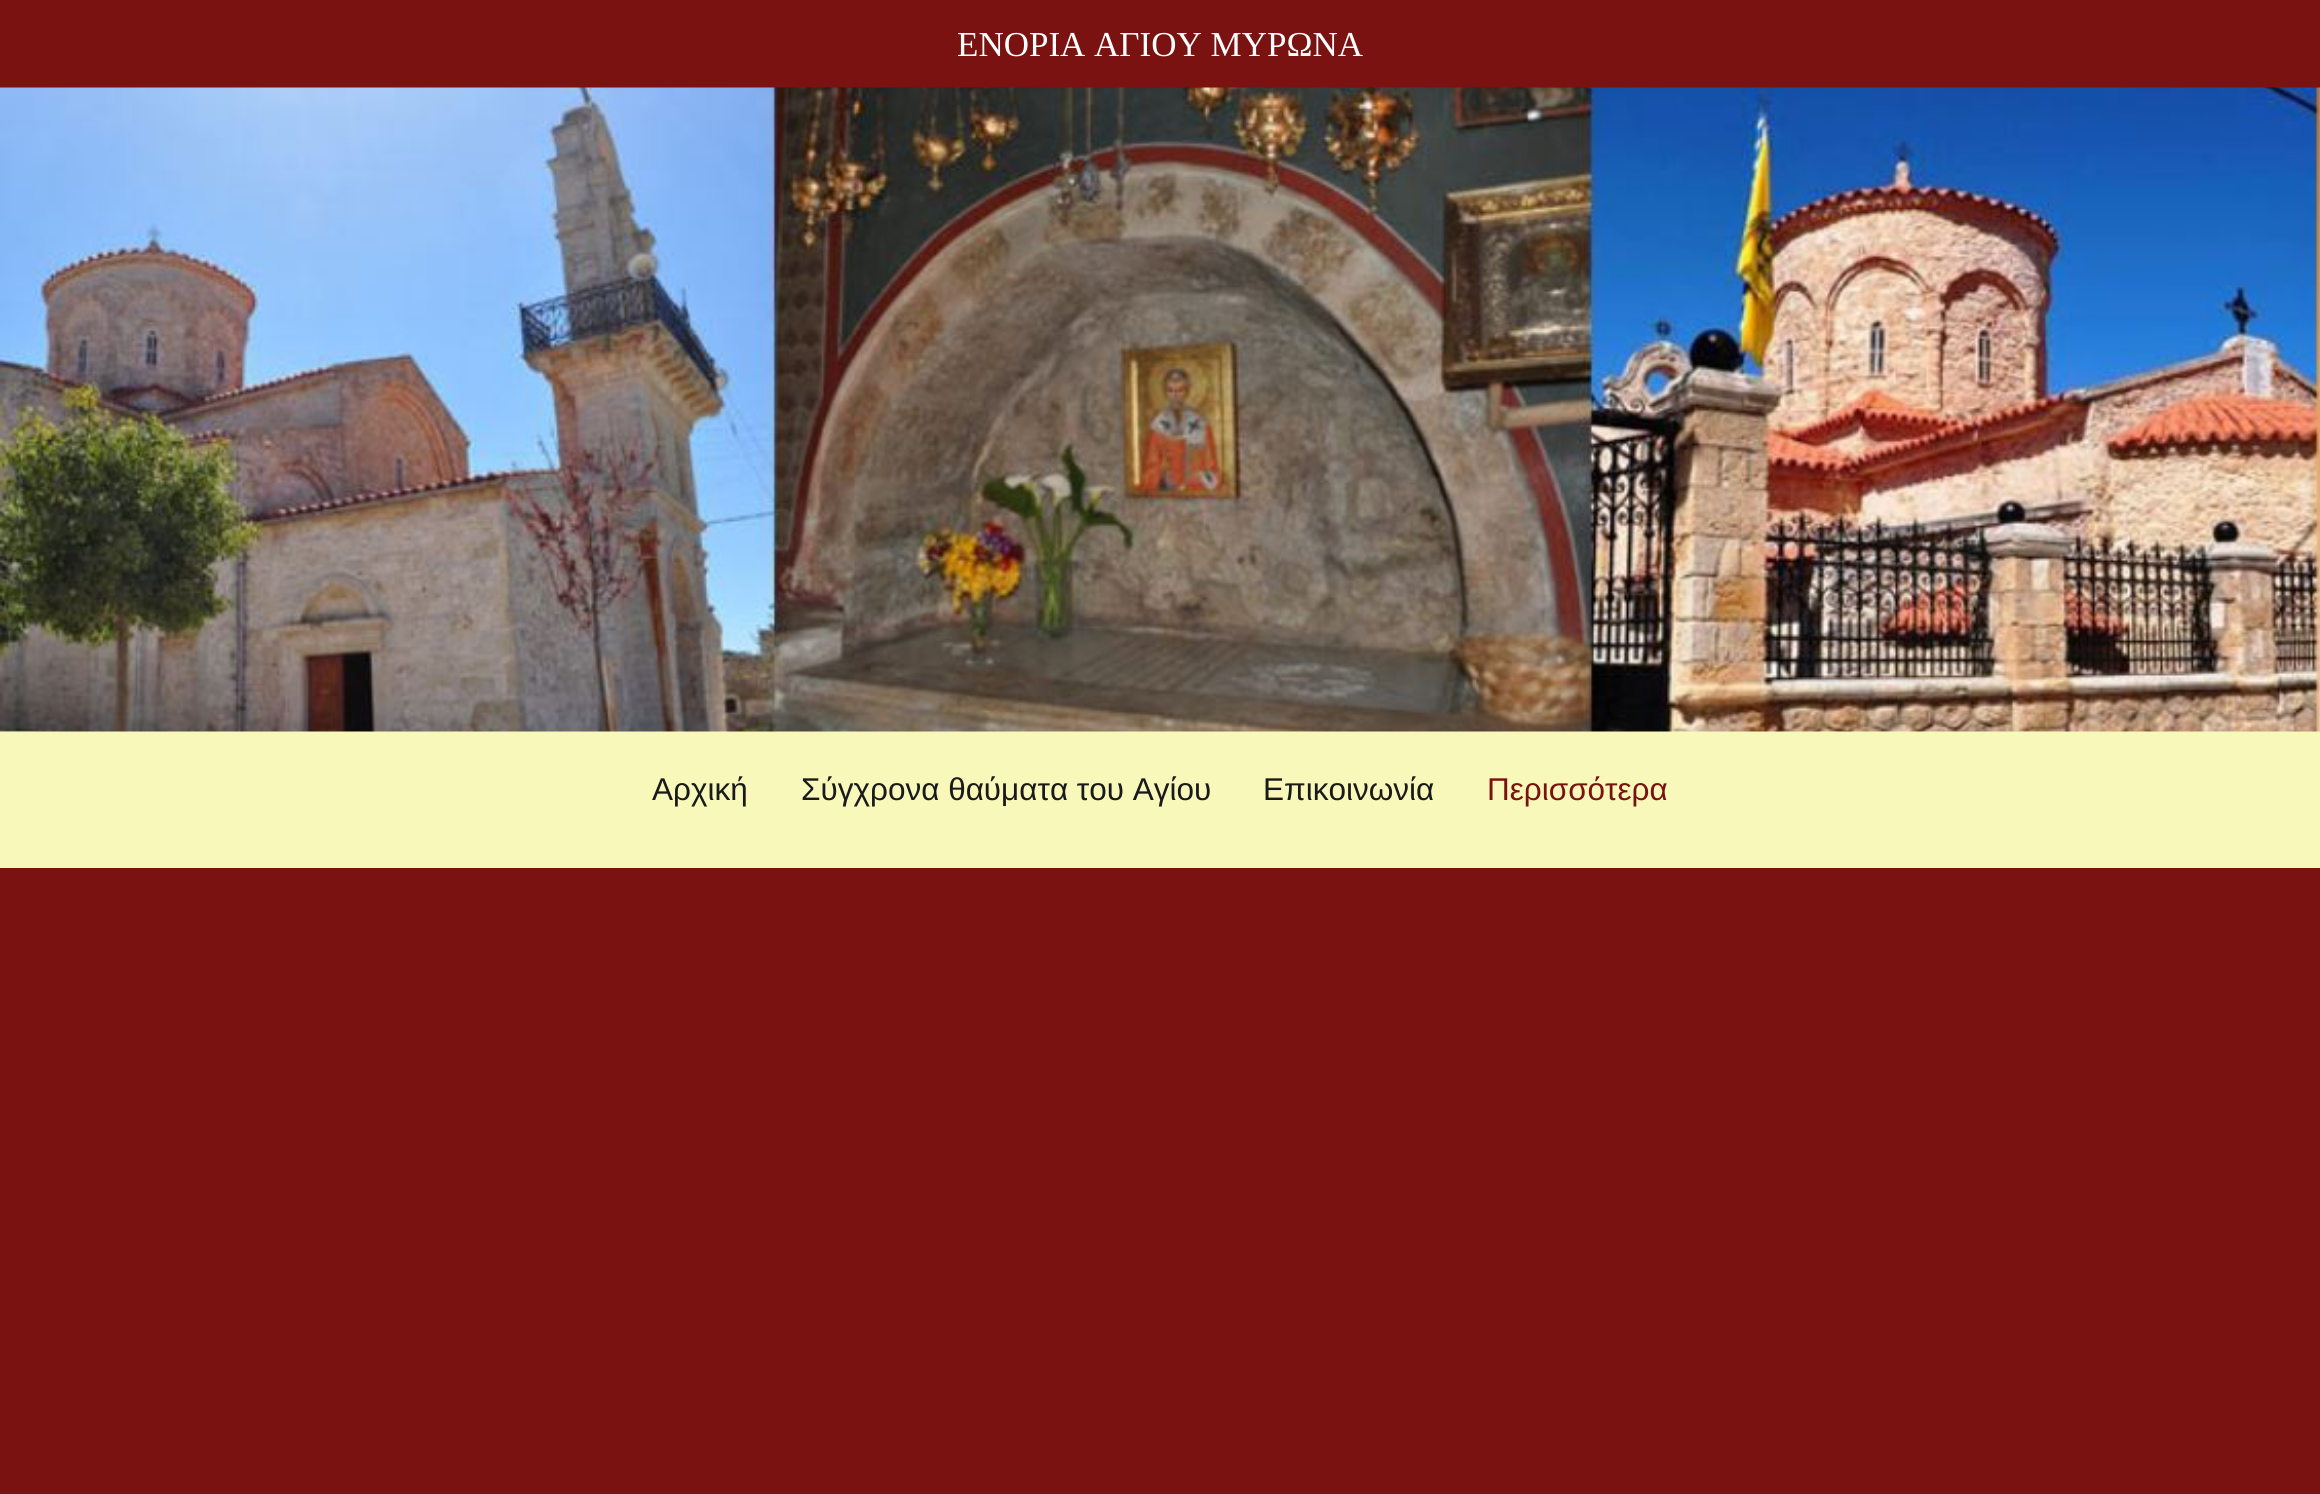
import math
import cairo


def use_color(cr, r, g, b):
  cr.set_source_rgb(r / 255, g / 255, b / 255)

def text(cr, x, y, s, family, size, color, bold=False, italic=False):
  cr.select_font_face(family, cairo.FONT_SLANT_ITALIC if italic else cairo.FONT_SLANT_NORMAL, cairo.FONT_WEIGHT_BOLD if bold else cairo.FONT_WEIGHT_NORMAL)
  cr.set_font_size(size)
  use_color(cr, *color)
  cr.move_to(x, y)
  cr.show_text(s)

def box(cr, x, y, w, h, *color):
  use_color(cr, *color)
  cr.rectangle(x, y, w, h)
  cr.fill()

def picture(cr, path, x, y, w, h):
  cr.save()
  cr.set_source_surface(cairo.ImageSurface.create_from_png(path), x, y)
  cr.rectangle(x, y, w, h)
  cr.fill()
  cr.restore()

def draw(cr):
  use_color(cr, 248, 248, 186)
  cr.paint()
  box(cr, 0, 0, 2320, 88, 121, 18, 17)
  picture(cr, "img_01.png", 0, 87, 2320, 645)
  box(cr, 0, 868, 2320, 626, 121, 18, 17)
  text(cr, 957, 56, "ΕΝΟΡΙΑ ΑΓΙΟΥ ΜΥΡΩΝΑ", "Liberation Serif", 35, (255, 255, 255))
  text(cr, 652, 800, "Αρχική", "Liberation Sans", 31.5, (26, 26, 26))
  text(cr, 801, 800, "Σύγχρονα θαύματα του Αγίου", "Liberation Sans", 31.5, (26, 26, 26))
  text(cr, 1263, 800, "Επικοινωνία", "Liberation Sans", 31.5, (26, 26, 26))
  text(cr, 1487, 800, "Περισσότερα", "Liberation Sans", 31.5, (121, 18, 17))


surface = cairo.ImageSurface(cairo.FORMAT_RGB24, 2320, 1494)
cr = cairo.Context(surface)
options = cairo.FontOptions()
options.set_hint_metrics(cairo.HINT_METRICS_OFF)
options.set_hint_style(cairo.HINT_STYLE_NONE)
cr.set_font_options(options)
cr.set_miter_limit(4)
draw(cr)
surface.write_to_png("out.png")
